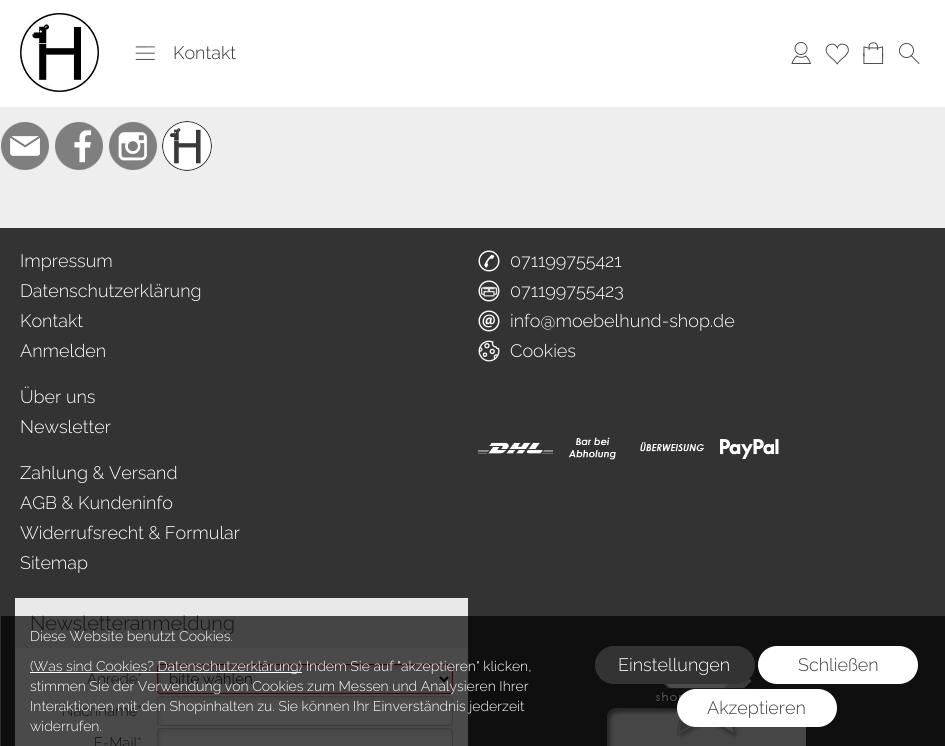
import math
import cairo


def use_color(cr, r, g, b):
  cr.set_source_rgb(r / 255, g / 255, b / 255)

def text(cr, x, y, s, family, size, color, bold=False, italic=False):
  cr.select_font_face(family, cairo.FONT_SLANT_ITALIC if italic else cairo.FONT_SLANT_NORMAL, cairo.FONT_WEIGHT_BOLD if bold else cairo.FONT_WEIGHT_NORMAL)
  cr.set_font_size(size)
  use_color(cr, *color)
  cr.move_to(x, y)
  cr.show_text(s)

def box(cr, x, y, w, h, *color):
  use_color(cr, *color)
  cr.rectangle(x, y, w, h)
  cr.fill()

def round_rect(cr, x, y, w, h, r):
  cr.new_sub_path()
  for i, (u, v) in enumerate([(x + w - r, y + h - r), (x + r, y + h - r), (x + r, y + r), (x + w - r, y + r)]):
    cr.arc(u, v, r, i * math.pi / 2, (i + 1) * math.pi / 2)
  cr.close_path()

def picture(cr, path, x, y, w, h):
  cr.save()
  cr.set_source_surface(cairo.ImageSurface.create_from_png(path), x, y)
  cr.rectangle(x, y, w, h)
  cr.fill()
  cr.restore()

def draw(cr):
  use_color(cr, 238, 238, 238)
  cr.paint()
  box(cr, 0, 0, 945, 105, 255, 255, 255)
  picture(cr, "img_01.png", 20, 13, 79, 79)
  picture(cr, "img_02.png", 135, 46, 20, 14)
  picture(cr, "img_03.png", 791, 42, 20, 22)
  picture(cr, "img_04.png", 825, 43, 24, 22)
  picture(cr, "img_05.png", 863, 42, 21, 22)
  cr.arc(906.5, 50.5, 7, 0, 2 * math.pi)
  use_color(cr, 63, 63, 63)
  cr.set_line_width(0.9)
  cr.stroke()
  cr.new_path()
  cr.move_to(911, 55.5)
  cr.line_to(919, 63.5)
  cr.set_line_cap(cairo.LINE_CAP_ROUND)
  cr.stroke()
  box(cr, 0, 105, 945, 2, 253, 253, 253)
  picture(cr, "img_06.png", 1, 122, 48, 48)
  picture(cr, "img_07.png", 55, 122, 48, 48)
  picture(cr, "img_08.png", 109, 122, 48, 48)
  picture(cr, "img_09.png", 162, 121, 50, 50)
  box(cr, 0, 228, 945, 518, 51, 51, 51)
  picture(cr, "img_10.png", 478, 250, 22, 22)
  picture(cr, "img_11.png", 478, 280, 22, 22)
  picture(cr, "img_12.png", 478, 310, 22, 22)
  picture(cr, "img_13.png", 478, 340, 22, 22)
  picture(cr, "img_14.png", 478, 442, 75, 12)
  picture(cr, "img_15.png", 568, 437, 48, 23)
  picture(cr, "img_16.png", 640, 442, 64, 10)
  picture(cr, "img_17.png", 720, 439, 59, 20)
  picture(cr, "img_18.png", 15, 598, 453, 148)
  picture(cr, "img_19.png", 607, 678, 199, 68)
  cr.set_source_rgba(0, 0, 0, 0.7)
  cr.rectangle(1, 616, 944, 130)
  cr.fill()
  box(cr, 30, 672, 272, 1, 255, 255, 255)
  use_color(cr, 51, 51, 51)
  round_rect(cr, 595, 646, 160, 38, 19)
  cr.fill()
  use_color(cr, 255, 255, 255)
  round_rect(cr, 758, 646, 160, 38, 19)
  cr.fill()
  round_rect(cr, 677, 689, 160, 38, 19)
  cr.fill()
  text(cr, 173, 59, "Kontakt", "Raleway Light", 18, (51, 51, 51))
  text(cr, 20, 267, "Impressum", "Raleway Light", 18, (255, 255, 255))
  text(cr, 20, 297, "Datenschutzerklärung", "Raleway Light", 18, (255, 255, 255))
  text(cr, 20, 327, "Kontakt", "Raleway Light", 18, (255, 255, 255))
  text(cr, 20, 357, "Anmelden", "Raleway Light", 18, (255, 255, 255))
  text(cr, 20, 403, "Über uns", "Raleway Light", 18, (255, 255, 255))
  text(cr, 20, 433, "Newsletter", "Raleway Light", 18, (255, 255, 255))
  text(cr, 20, 479, "Zahlung & Versand", "Raleway Light", 18, (255, 255, 255))
  text(cr, 20, 509, "AGB & Kundeninfo", "Raleway Light", 18, (255, 255, 255))
  text(cr, 20, 539, "Widerrufsrecht & Formular", "Raleway Light", 18, (255, 255, 255))
  text(cr, 20, 569, "Sitemap", "Raleway Light", 18, (255, 255, 255))
  text(cr, 510, 267, "071199755421", "Raleway Light", 18, (255, 255, 255))
  text(cr, 510, 297, "071199755423", "Raleway Light", 18, (255, 255, 255))
  text(cr, 510, 327, "info@moebelhund-shop.de", "Raleway Light", 18, (255, 255, 255))
  text(cr, 510, 357, "Cookies", "Raleway Light", 18, (255, 255, 255))
  text(cr, 30, 641, "Diese Website benutzt Cookies.", "Raleway Light", 14, (255, 255, 255))
  text(cr, 30, 671, "(Was sind Cookies? Datenschutzerklärung) Indem Sie auf \"akzeptieren\" klicken,", "Raleway Light", 14, (255, 255, 255))
  text(cr, 30, 691, "stimmen Sie der Verwendung von Cookies zum Messen und Analysieren Ihrer", "Raleway Light", 14, (255, 255, 255))
  text(cr, 30, 711, "Interaktionen mit den Shopinhalten zu. Sie können Ihr Einverständnis jederzeit", "Raleway Light", 14, (255, 255, 255))
  text(cr, 30, 731, "widerrufen.", "Raleway Light", 14, (255, 255, 255))
  text(cr, 618, 671, "Einstellungen", "Raleway Light", 18, (255, 255, 255))
  text(cr, 798, 671, "Schließen", "Raleway Light", 18, (62, 62, 62))
  text(cr, 707, 714, "Akzeptieren", "Raleway Light", 18, (62, 62, 62))


surface = cairo.ImageSurface(cairo.FORMAT_RGB24, 945, 746)
cr = cairo.Context(surface)
options = cairo.FontOptions()
options.set_hint_metrics(cairo.HINT_METRICS_OFF)
options.set_hint_style(cairo.HINT_STYLE_NONE)
cr.set_font_options(options)
cr.set_miter_limit(4)
draw(cr)
surface.write_to_png("out.png")
